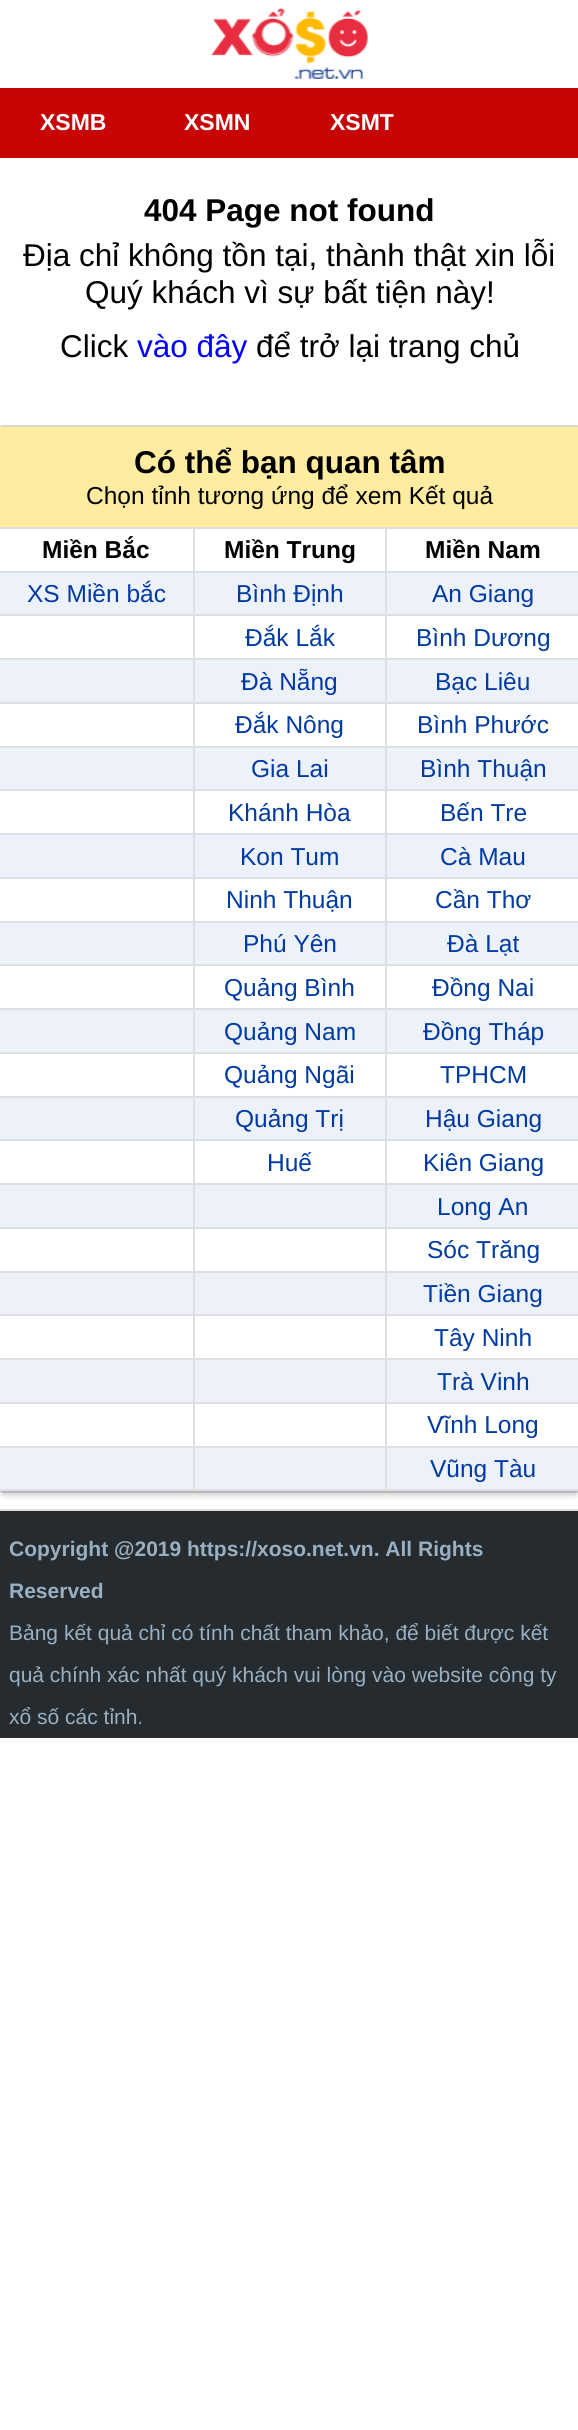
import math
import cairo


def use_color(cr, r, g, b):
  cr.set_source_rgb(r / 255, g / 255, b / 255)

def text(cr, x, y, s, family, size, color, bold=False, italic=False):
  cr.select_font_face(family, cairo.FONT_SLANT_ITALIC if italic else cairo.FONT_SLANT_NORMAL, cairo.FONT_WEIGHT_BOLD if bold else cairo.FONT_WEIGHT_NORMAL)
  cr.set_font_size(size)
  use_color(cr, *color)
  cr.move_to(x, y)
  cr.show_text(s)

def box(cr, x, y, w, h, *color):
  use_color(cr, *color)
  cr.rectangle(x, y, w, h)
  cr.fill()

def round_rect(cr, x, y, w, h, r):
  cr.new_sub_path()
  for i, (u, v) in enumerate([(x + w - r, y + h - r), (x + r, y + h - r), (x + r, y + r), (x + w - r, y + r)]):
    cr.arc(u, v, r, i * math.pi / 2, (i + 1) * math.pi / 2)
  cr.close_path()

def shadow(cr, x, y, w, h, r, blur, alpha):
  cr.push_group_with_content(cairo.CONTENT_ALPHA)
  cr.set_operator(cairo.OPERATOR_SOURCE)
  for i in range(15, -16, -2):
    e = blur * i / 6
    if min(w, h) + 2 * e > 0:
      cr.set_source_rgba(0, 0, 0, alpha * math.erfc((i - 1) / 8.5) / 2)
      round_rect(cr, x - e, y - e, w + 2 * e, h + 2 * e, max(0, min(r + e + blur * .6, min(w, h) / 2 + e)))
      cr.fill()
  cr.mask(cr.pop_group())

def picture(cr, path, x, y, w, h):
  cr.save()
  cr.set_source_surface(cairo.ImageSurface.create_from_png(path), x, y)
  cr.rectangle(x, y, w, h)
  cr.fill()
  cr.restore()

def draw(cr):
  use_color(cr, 255, 255, 255)
  cr.paint()
  box(cr, 0, 88, 578, 70, 200, 5, 5)
  use_color(cr, 0, 0, 0)
  shadow(cr, 0, -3, 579, 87, 0, 2.5, 1)
  box(cr, 0, 0, 578, 88, 255, 255, 255)
  picture(cr, "img_01.png", 211, 8, 157, 71)
  round_rect(cr, -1, 426, 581, 1066, 4)
  use_color(cr, 214, 214, 214)
  cr.stroke()
  use_color(cr, 0, 0, 0)
  shadow(cr, 0, 432, 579, 1064, 4, 2.5, 0.16)
  box(cr, 0, 529, 578, 917, 255, 255, 255)
  box(cr, 0, 427, 578, 100, 255, 236, 160)
  box(cr, 385, 527, 193, 2, 221, 223, 226)
  box(cr, 385, 571, 193, 2, 221, 223, 226)
  box(cr, 0, 573, 578, 41, 237, 242, 250)
  box(cr, 385, 614, 193, 2, 221, 223, 226)
  box(cr, 385, 658, 193, 2, 221, 223, 226)
  box(cr, 0, 660, 578, 42, 237, 242, 250)
  box(cr, 385, 702, 193, 2, 221, 223, 226)
  box(cr, 385, 746, 193, 2, 221, 223, 226)
  box(cr, 0, 748, 578, 41, 237, 242, 250)
  box(cr, 385, 789, 193, 2, 221, 223, 226)
  box(cr, 385, 833, 193, 2, 221, 223, 226)
  box(cr, 0, 835, 578, 42, 237, 242, 250)
  box(cr, 385, 877, 193, 2, 221, 223, 226)
  box(cr, 385, 921, 193, 2, 221, 223, 226)
  box(cr, 0, 923, 578, 41, 237, 242, 250)
  box(cr, 385, 964, 193, 2, 221, 223, 226)
  box(cr, 385, 1008, 193, 2, 221, 223, 226)
  box(cr, 0, 1010, 578, 42, 237, 242, 250)
  box(cr, 385, 1052, 193, 2, 221, 223, 226)
  box(cr, 385, 1096, 193, 2, 221, 223, 226)
  box(cr, 0, 1098, 578, 41, 237, 242, 250)
  box(cr, 385, 1139, 193, 2, 221, 223, 226)
  box(cr, 385, 1183, 193, 2, 221, 223, 226)
  box(cr, 0, 1185, 578, 42, 237, 242, 250)
  box(cr, 385, 1227, 193, 2, 221, 223, 226)
  box(cr, 385, 1271, 193, 2, 221, 223, 226)
  box(cr, 0, 1273, 578, 41, 237, 242, 250)
  box(cr, 385, 1314, 193, 2, 221, 223, 226)
  box(cr, 385, 1358, 193, 2, 221, 223, 226)
  box(cr, 0, 1360, 578, 42, 237, 242, 250)
  box(cr, 385, 1402, 193, 2, 221, 223, 226)
  box(cr, 385, 1446, 193, 2, 221, 223, 226)
  box(cr, 0, 1448, 578, 41, 237, 242, 250)
  box(cr, 385, 1489, 193, 2, 221, 223, 226)
  box(cr, 385, 1446, 2, 45, 221, 223, 226)
  box(cr, 193, 1446, 194, 2, 221, 223, 226)
  box(cr, 385, 1402, 2, 45, 221, 223, 226)
  box(cr, 193, 1402, 194, 2, 221, 223, 226)
  box(cr, 385, 1358, 2, 46, 221, 223, 226)
  box(cr, 193, 1358, 194, 2, 221, 223, 226)
  box(cr, 385, 1314, 2, 46, 221, 223, 226)
  box(cr, 193, 1314, 194, 2, 221, 223, 226)
  box(cr, 385, 1271, 2, 45, 221, 223, 226)
  box(cr, 193, 1271, 194, 2, 221, 223, 226)
  box(cr, 385, 1227, 2, 45, 221, 223, 226)
  box(cr, 193, 1227, 194, 2, 221, 223, 226)
  box(cr, 385, 1183, 2, 46, 221, 223, 226)
  box(cr, 193, 1183, 194, 2, 221, 223, 226)
  box(cr, 385, 1139, 2, 46, 221, 223, 226)
  box(cr, 193, 1139, 194, 2, 221, 223, 226)
  box(cr, 385, 1096, 2, 45, 221, 223, 226)
  box(cr, 193, 1096, 194, 2, 221, 223, 226)
  box(cr, 385, 1052, 2, 45, 221, 223, 226)
  box(cr, 193, 1052, 194, 2, 221, 223, 226)
  box(cr, 385, 1008, 2, 46, 221, 223, 226)
  box(cr, 193, 1008, 194, 2, 221, 223, 226)
  box(cr, 385, 964, 2, 46, 221, 223, 226)
  box(cr, 193, 964, 194, 2, 221, 223, 226)
  box(cr, 385, 921, 2, 45, 221, 223, 226)
  box(cr, 193, 921, 194, 2, 221, 223, 226)
  box(cr, 385, 877, 2, 45, 221, 223, 226)
  box(cr, 193, 877, 194, 2, 221, 223, 226)
  box(cr, 385, 833, 2, 46, 221, 223, 226)
  box(cr, 193, 833, 194, 2, 221, 223, 226)
  box(cr, 385, 789, 2, 46, 221, 223, 226)
  box(cr, 193, 789, 194, 2, 221, 223, 226)
  box(cr, 385, 746, 2, 45, 221, 223, 226)
  box(cr, 193, 746, 194, 2, 221, 223, 226)
  box(cr, 385, 702, 2, 45, 221, 223, 226)
  box(cr, 193, 702, 194, 2, 221, 223, 226)
  box(cr, 385, 658, 2, 46, 221, 223, 226)
  box(cr, 193, 658, 194, 2, 221, 223, 226)
  box(cr, 385, 614, 2, 46, 221, 223, 226)
  box(cr, 193, 614, 194, 2, 221, 223, 226)
  box(cr, 385, 571, 2, 45, 221, 223, 226)
  box(cr, 193, 571, 194, 2, 221, 223, 226)
  box(cr, 385, 527, 2, 45, 221, 223, 226)
  box(cr, 193, 527, 194, 2, 221, 223, 226)
  box(cr, 193, 1489, 194, 2, 221, 223, 226)
  box(cr, 193, 1446, 2, 45, 221, 223, 226)
  box(cr, 0, 1446, 194, 2, 221, 223, 226)
  box(cr, 193, 1402, 2, 45, 221, 223, 226)
  box(cr, 0, 1402, 194, 2, 221, 223, 226)
  box(cr, 193, 1358, 2, 46, 221, 223, 226)
  box(cr, 0, 1358, 194, 2, 221, 223, 226)
  box(cr, 193, 1314, 2, 46, 221, 223, 226)
  box(cr, 0, 1314, 194, 2, 221, 223, 226)
  box(cr, 193, 1271, 2, 45, 221, 223, 226)
  box(cr, 0, 1271, 194, 2, 221, 223, 226)
  box(cr, 193, 1227, 2, 45, 221, 223, 226)
  box(cr, 0, 1227, 194, 2, 221, 223, 226)
  box(cr, 193, 1183, 2, 46, 221, 223, 226)
  box(cr, 0, 1183, 194, 2, 221, 223, 226)
  box(cr, 193, 1139, 2, 46, 221, 223, 226)
  box(cr, 0, 1139, 194, 2, 221, 223, 226)
  box(cr, 193, 1096, 2, 45, 221, 223, 226)
  box(cr, 0, 1096, 194, 2, 221, 223, 226)
  box(cr, 193, 1052, 2, 45, 221, 223, 226)
  box(cr, 0, 1052, 194, 2, 221, 223, 226)
  box(cr, 193, 1008, 2, 46, 221, 223, 226)
  box(cr, 0, 1008, 194, 2, 221, 223, 226)
  box(cr, 193, 964, 2, 46, 221, 223, 226)
  box(cr, 0, 964, 194, 2, 221, 223, 226)
  box(cr, 193, 921, 2, 45, 221, 223, 226)
  box(cr, 0, 921, 194, 2, 221, 223, 226)
  box(cr, 193, 877, 2, 45, 221, 223, 226)
  box(cr, 0, 877, 194, 2, 221, 223, 226)
  box(cr, 193, 833, 2, 46, 221, 223, 226)
  box(cr, 0, 833, 194, 2, 221, 223, 226)
  box(cr, 193, 789, 2, 46, 221, 223, 226)
  box(cr, 0, 789, 194, 2, 221, 223, 226)
  box(cr, 193, 746, 2, 45, 221, 223, 226)
  box(cr, 0, 746, 194, 2, 221, 223, 226)
  box(cr, 193, 702, 2, 45, 221, 223, 226)
  box(cr, 0, 702, 194, 2, 221, 223, 226)
  box(cr, 193, 658, 2, 46, 221, 223, 226)
  box(cr, 0, 658, 194, 2, 221, 223, 226)
  box(cr, 193, 614, 2, 46, 221, 223, 226)
  box(cr, 0, 614, 194, 2, 221, 223, 226)
  box(cr, 193, 571, 2, 45, 221, 223, 226)
  box(cr, 0, 571, 194, 2, 221, 223, 226)
  box(cr, 193, 527, 2, 45, 221, 223, 226)
  box(cr, 0, 527, 194, 2, 221, 223, 226)
  box(cr, 0, 1489, 194, 2, 221, 223, 226)
  box(cr, 0, 1511, 578, 227, 38, 43, 47)
  box(cr, 0, 1509, 578, 2, 221, 223, 226)
  text(cr, 40, 130, "XSMB", "Liberation Sans", 23, (255, 255, 255), bold=True)
  text(cr, 184, 130, "XSMN", "Liberation Sans", 23, (255, 255, 255), bold=True)
  text(cr, 330, 130, "XSMT", "Liberation Sans", 23, (255, 255, 255), bold=True)
  text(cr, 144, 221, "404 Page not found", "Liberation Sans", 31.5, (0, 0, 0), bold=True)
  text(cr, 23, 266, "Địa chỉ không tồn tại, thành thật xin lỗi", "Liberation Sans", 31.5, (0, 0, 0))
  text(cr, 85, 303, "Quý khách vì sự bất tiện này!", "Liberation Sans", 31.5, (0, 0, 0))
  text(cr, 60, 357, "Click", "Liberation Sans", 31.5, (0, 0, 0))
  text(cr, 137, 357, "vào đây", "Liberation Sans", 31.5, (0, 0, 255))
  text(cr, 256, 357, "để trở lại trang chủ", "Liberation Sans", 31.5, (0, 0, 0))
  text(cr, 134, 473, "Có thể bạn quan tâm", "Liberation Sans", 31.5, (0, 0, 0), bold=True)
  text(cr, 86, 504, "Chọn tỉnh tương ứng để xem Kết quả", "Liberation Sans", 24.5, (0, 0, 0))
  text(cr, 42, 558, "Miền Bắc", "Liberation Sans", 24.5, (0, 0, 0), bold=True)
  text(cr, 224, 558, "Miền Trung", "Liberation Sans", 24.5, (0, 0, 0), bold=True)
  text(cr, 425, 558, "Miền Nam", "Liberation Sans", 24.5, (0, 0, 0), bold=True)
  text(cr, 27, 602, "XS Miền bắc", "Liberation Sans", 24.5, (0, 58, 162))
  text(cr, 236, 602, "Bình Định", "Liberation Sans", 24.5, (0, 58, 162))
  text(cr, 432, 602, "An Giang", "Liberation Sans", 24.5, (0, 58, 162))
  text(cr, 245, 646, "Đắk Lắk", "Liberation Sans", 24.5, (0, 58, 162))
  text(cr, 416, 646, "Bình Dương", "Liberation Sans", 24.5, (0, 58, 162))
  text(cr, 241, 690, "Đà Nẵng", "Liberation Sans", 24.5, (0, 58, 162))
  text(cr, 435, 690, "Bạc Liêu", "Liberation Sans", 24.5, (0, 58, 162))
  text(cr, 235, 733, "Đắk Nông", "Liberation Sans", 24.5, (0, 58, 162))
  text(cr, 417, 733, "Bình Phước", "Liberation Sans", 24.5, (0, 58, 162))
  text(cr, 251, 777, "Gia Lai", "Liberation Sans", 24.5, (0, 58, 162))
  text(cr, 420, 777, "Bình Thuận", "Liberation Sans", 24.5, (0, 58, 162))
  text(cr, 228, 821, "Khánh Hòa", "Liberation Sans", 24.5, (0, 58, 162))
  text(cr, 440, 821, "Bến Tre", "Liberation Sans", 24.5, (0, 58, 162))
  text(cr, 240, 865, "Kon Tum", "Liberation Sans", 24.5, (0, 58, 162))
  text(cr, 440, 865, "Cà Mau", "Liberation Sans", 24.5, (0, 58, 162))
  text(cr, 226, 908, "Ninh Thuận", "Liberation Sans", 24.5, (0, 58, 162))
  text(cr, 435, 908, "Cần Thơ", "Liberation Sans", 24.5, (0, 58, 162))
  text(cr, 243, 952, "Phú Yên", "Liberation Sans", 24.5, (0, 58, 162))
  text(cr, 447, 952, "Đà Lạt", "Liberation Sans", 24.5, (0, 58, 162))
  text(cr, 224, 996, "Quảng Bình", "Liberation Sans", 24.5, (0, 58, 162))
  text(cr, 432, 996, "Đồng Nai", "Liberation Sans", 24.5, (0, 58, 162))
  text(cr, 224, 1040, "Quảng Nam", "Liberation Sans", 24.5, (0, 58, 162))
  text(cr, 423, 1040, "Đồng Tháp", "Liberation Sans", 24.5, (0, 58, 162))
  text(cr, 224, 1083, "Quảng Ngãi", "Liberation Sans", 24.5, (0, 58, 162))
  text(cr, 440, 1083, "TPHCM", "Liberation Sans", 24.5, (0, 58, 162))
  text(cr, 235, 1127, "Quảng Trị", "Liberation Sans", 24.5, (0, 58, 162))
  text(cr, 425, 1127, "Hậu Giang", "Liberation Sans", 24.5, (0, 58, 162))
  text(cr, 267, 1171, "Huế", "Liberation Sans", 24.5, (0, 58, 162))
  text(cr, 423, 1171, "Kiên Giang", "Liberation Sans", 24.5, (0, 58, 162))
  text(cr, 437, 1215, "Long An", "Liberation Sans", 24.5, (0, 58, 162))
  text(cr, 427, 1258, "Sóc Trăng", "Liberation Sans", 24.5, (0, 58, 162))
  text(cr, 423, 1302, "Tiền Giang", "Liberation Sans", 24.5, (0, 58, 162))
  text(cr, 434, 1346, "Tây Ninh", "Liberation Sans", 24.5, (0, 58, 162))
  text(cr, 437, 1390, "Trà Vinh", "Liberation Sans", 24.5, (0, 58, 162))
  text(cr, 427, 1433, "Vĩnh Long", "Liberation Sans", 24.5, (0, 58, 162))
  text(cr, 430, 1477, "Vũng Tàu", "Liberation Sans", 24.5, (0, 58, 162))
  text(cr, 9, 1556, "Copyright @2019 https://xoso.net.vn. All Rights", "Liberation Sans", 21, (153, 176, 194), bold=True)
  text(cr, 9, 1598, "Reserved", "Liberation Sans", 21, (153, 176, 194), bold=True)
  text(cr, 9, 1640, "Bảng kết quả chỉ có tính chất tham khảo, để biết được kết", "Liberation Sans", 21, (153, 176, 194))
  text(cr, 9, 1682, "quả chính xác nhất quý khách vui lòng vào website công ty", "Liberation Sans", 21, (153, 176, 194))
  text(cr, 9, 1724, "xổ số các tỉnh.", "Liberation Sans", 21, (153, 176, 194))


surface = cairo.ImageSurface(cairo.FORMAT_RGB24, 578, 2430)
cr = cairo.Context(surface)
options = cairo.FontOptions()
options.set_hint_metrics(cairo.HINT_METRICS_OFF)
options.set_hint_style(cairo.HINT_STYLE_NONE)
cr.set_font_options(options)
cr.set_miter_limit(4)
draw(cr)
surface.write_to_png("out.png")
